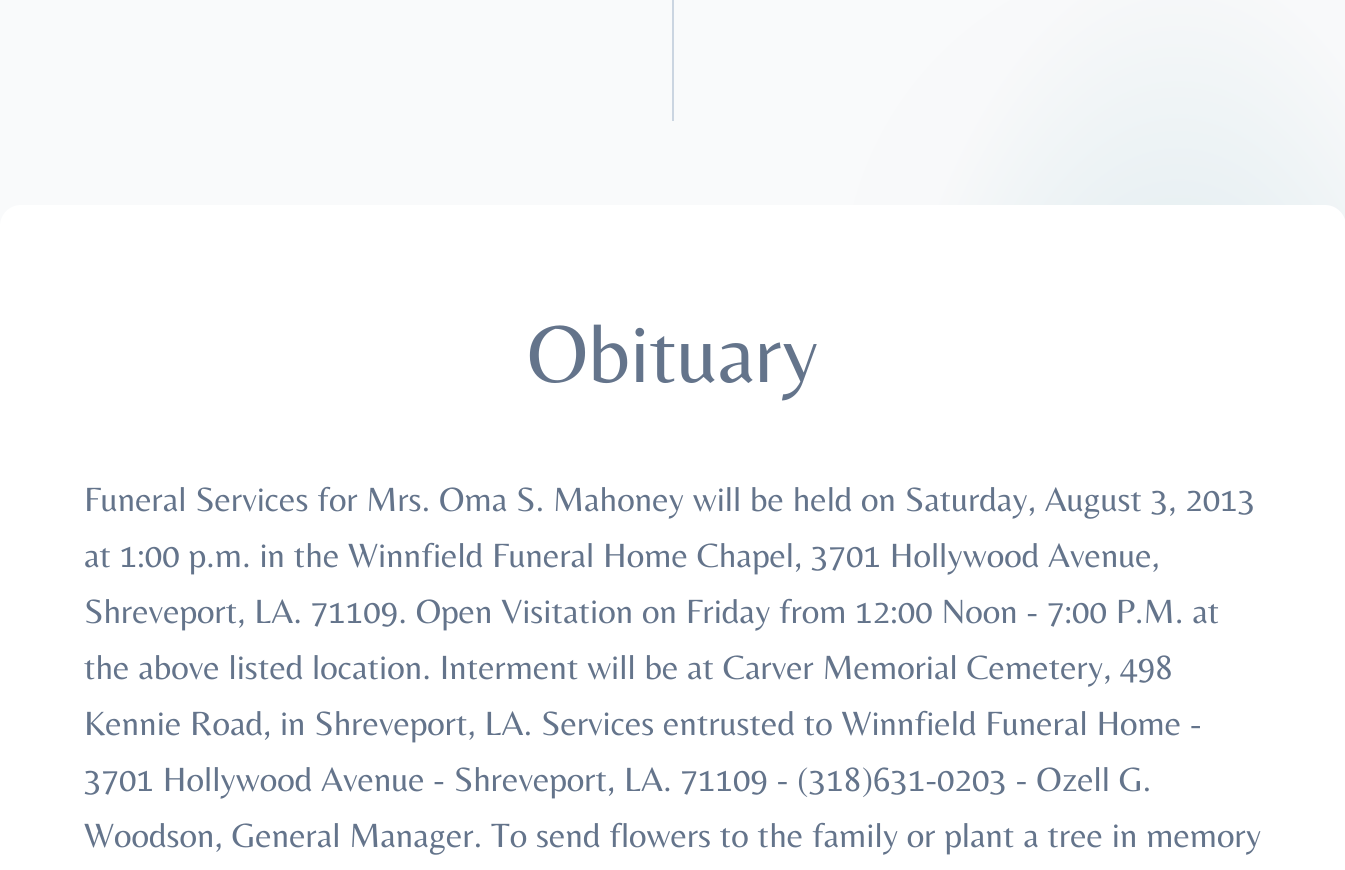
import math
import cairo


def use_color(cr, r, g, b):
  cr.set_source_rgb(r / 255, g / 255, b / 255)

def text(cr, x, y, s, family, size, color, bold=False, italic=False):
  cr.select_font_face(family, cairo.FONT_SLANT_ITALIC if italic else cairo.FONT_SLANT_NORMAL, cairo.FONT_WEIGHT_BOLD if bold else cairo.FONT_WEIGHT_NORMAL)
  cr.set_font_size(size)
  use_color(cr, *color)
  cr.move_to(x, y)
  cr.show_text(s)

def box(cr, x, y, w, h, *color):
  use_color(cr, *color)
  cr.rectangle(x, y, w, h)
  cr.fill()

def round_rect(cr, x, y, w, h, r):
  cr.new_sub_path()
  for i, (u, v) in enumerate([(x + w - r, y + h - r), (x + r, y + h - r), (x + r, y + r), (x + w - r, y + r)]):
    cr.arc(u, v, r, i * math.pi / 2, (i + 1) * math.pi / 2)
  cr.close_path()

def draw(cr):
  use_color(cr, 249, 250, 251)
  cr.paint()
  box(cr, 672, 0, 2, 121, 203, 213, 225)
  gradient = cairo.RadialGradient(0, 0, 0, 0, 0, 1)
  gradient.set_matrix(cairo.Matrix(1 / 336, 0, 0, 1 / 788, -1 * 1178 / 336, -1 * 742 / 788))
  gradient.add_color_stop_rgba(0, 0.788, 0.875, 0.898, 1)
  gradient.add_color_stop_rgba(1, 0.973, 0.976, 0.98, 1)
  cr.set_source(gradient)
  round_rect(cr, 842, -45, 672, 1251, 336)
  cr.fill()
  use_color(cr, 255, 255, 255)
  round_rect(cr, 0, 205, 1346, 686, 21)
  cr.fill()
  text(cr, 527, 382, "Obituary", "Belleza", 84, (100, 116, 139))
  text(cr, 84, 511, "Funeral Services for Mrs. Oma S. Mahoney will be held on Saturday, August 3, 2013", "Belleza", 35, (100, 116, 139))
  text(cr, 84, 567, "at 1:00 p.m. in the Winnfield Funeral Home Chapel, 3701 Hollywood Avenue,", "Belleza", 35, (100, 116, 139))
  text(cr, 84, 623, "Shreveport, LA. 71109. Open Visitation on Friday from 12:00 Noon - 7:00 P.M. at", "Belleza", 35, (100, 116, 139))
  text(cr, 84, 679, "the above listed location. Interment will be at Carver Memorial Cemetery, 498", "Belleza", 35, (100, 116, 139))
  text(cr, 84, 735, "Kennie Road, in Shreveport, LA. Services entrusted to Winnfield Funeral Home -", "Belleza", 35, (100, 116, 139))
  text(cr, 84, 791, "3701 Hollywood Avenue - Shreveport, LA. 71109 - (318)631-0203 - Ozell G.", "Belleza", 35, (100, 116, 139))
  text(cr, 84, 847, "Woodson, General Manager. To send flowers to the family or plant a tree in memory", "Belleza", 35, (100, 116, 139))


surface = cairo.ImageSurface(cairo.FORMAT_RGB24, 1345, 870)
cr = cairo.Context(surface)
options = cairo.FontOptions()
options.set_hint_metrics(cairo.HINT_METRICS_OFF)
options.set_hint_style(cairo.HINT_STYLE_NONE)
cr.set_font_options(options)
cr.set_miter_limit(4)
draw(cr)
surface.write_to_png("out.png")
